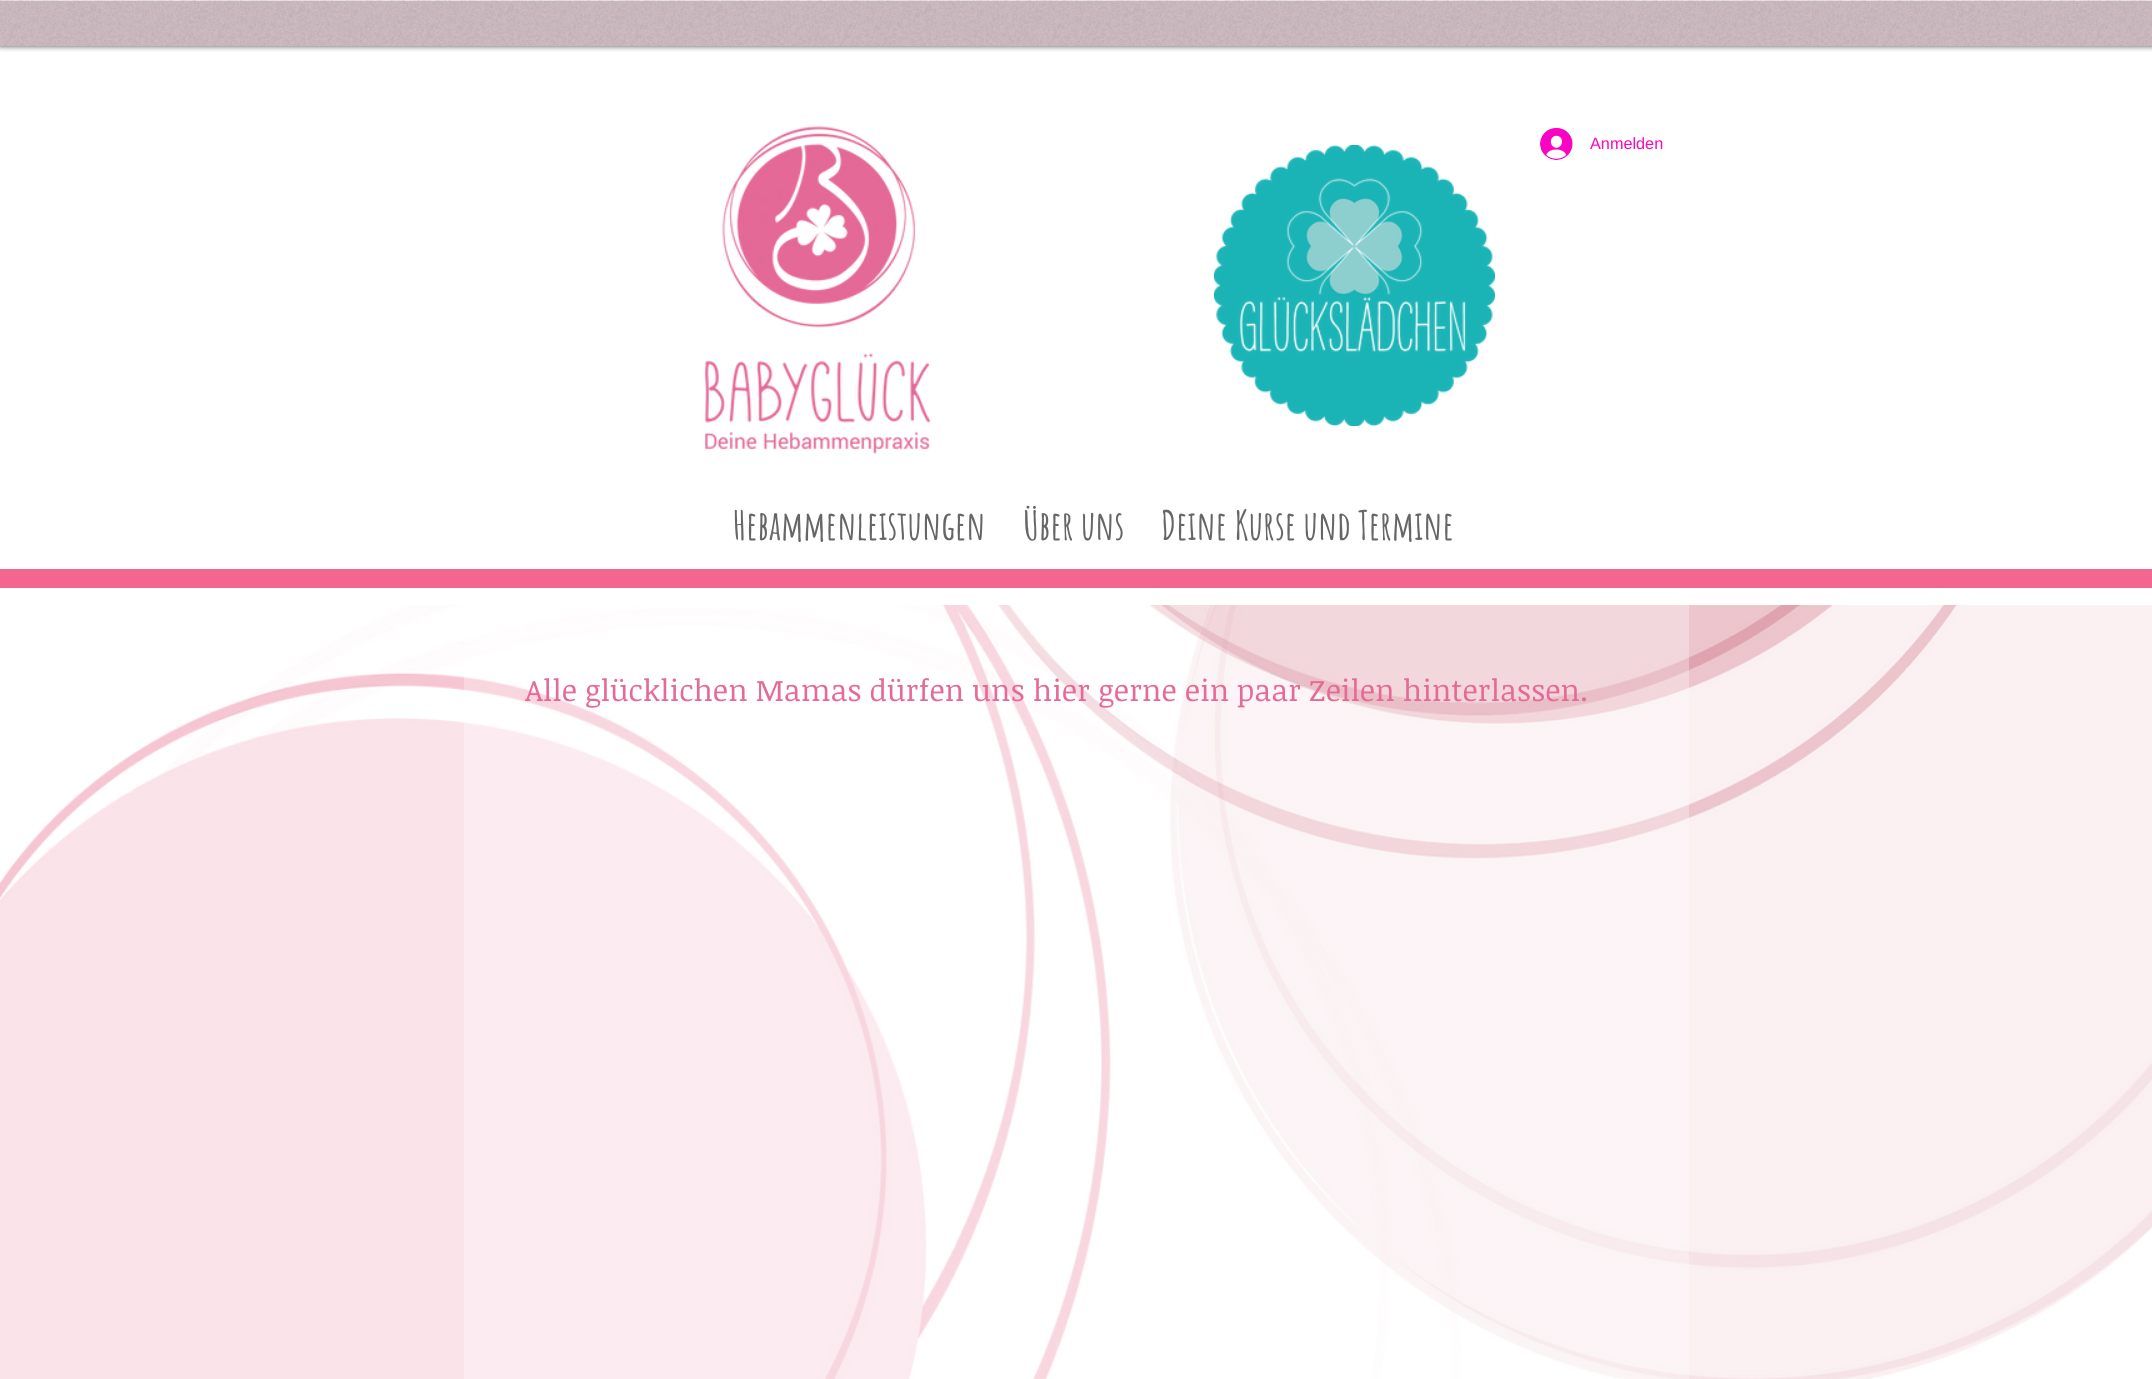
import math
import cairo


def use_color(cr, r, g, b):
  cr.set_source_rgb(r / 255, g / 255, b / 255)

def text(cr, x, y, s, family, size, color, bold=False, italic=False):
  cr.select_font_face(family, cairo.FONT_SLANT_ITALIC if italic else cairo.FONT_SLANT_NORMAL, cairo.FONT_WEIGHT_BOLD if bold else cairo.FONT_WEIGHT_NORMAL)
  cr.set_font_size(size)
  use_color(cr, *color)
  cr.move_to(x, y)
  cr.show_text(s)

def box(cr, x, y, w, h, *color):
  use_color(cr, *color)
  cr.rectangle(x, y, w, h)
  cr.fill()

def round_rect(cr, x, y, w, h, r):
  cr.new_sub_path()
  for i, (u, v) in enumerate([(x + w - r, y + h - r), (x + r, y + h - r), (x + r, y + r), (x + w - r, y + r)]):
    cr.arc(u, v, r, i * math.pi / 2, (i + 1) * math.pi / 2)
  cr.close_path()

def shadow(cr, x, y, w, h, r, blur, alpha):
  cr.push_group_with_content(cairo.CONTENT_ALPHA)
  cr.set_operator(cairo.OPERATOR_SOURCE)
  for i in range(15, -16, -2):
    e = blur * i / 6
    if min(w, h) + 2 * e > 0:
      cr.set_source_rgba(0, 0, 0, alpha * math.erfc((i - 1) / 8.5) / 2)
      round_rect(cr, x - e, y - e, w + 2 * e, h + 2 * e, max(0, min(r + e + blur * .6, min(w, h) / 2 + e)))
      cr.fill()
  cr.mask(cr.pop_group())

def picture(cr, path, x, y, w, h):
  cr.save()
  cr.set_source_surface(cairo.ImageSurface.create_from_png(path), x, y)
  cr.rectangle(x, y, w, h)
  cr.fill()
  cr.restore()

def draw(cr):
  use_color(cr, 255, 255, 255)
  cr.paint()
  box(cr, 0, 1, 2152, 45, 205, 187, 193)
  box(cr, 0, 0, 2152, 1, 235, 227, 230)
  cr.save()
  cr.rectangle(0, 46, 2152, 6)
  cr.clip()
  use_color(cr, 0, 0, 0)
  shadow(cr, 0, 0, 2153, 46, 0, 3, 0.7)
  cr.restore()
  picture(cr, "img_01.png", 0, 0, 2152, 46)
  picture(cr, "img_02.png", 704, 126, 227, 328)
  picture(cr, "img_03.png", 1540, 128, 33, 32)
  picture(cr, "img_04.png", 1213, 145, 282, 282)
  box(cr, 0, 569, 2152, 19, 242, 102, 143)
  picture(cr, "img_05.png", 0, 605, 2152, 774)
  cr.set_source_rgba(1, 1, 1, 0.3)
  cr.rectangle(464, 605, 1225, 774)
  cr.fill()
  text(cr, 1590, 149, "Anmelden", "Liberation Sans", 16.25, (249, 4, 195))
  text(cr, 733, 540, "Hebammenleistungen", "Amatic SC", 40, (102, 102, 102), bold=True)
  text(cr, 1023, 540, "Über uns", "Amatic SC", 40, (102, 102, 102), bold=True)
  text(cr, 1161, 540, "Deine Kurse und Termine", "Amatic SC", 40, (102, 102, 102), bold=True)
  text(cr, 525, 701, "Alle glücklichen Mamas dürfen uns hier gerne ein paar Zeilen hinterlassen.", "Noticia Text", 30, (229, 106, 151))


surface = cairo.ImageSurface(cairo.FORMAT_RGB24, 2152, 1379)
cr = cairo.Context(surface)
options = cairo.FontOptions()
options.set_hint_metrics(cairo.HINT_METRICS_OFF)
options.set_hint_style(cairo.HINT_STYLE_NONE)
cr.set_font_options(options)
cr.set_miter_limit(4)
draw(cr)
surface.write_to_png("out.png")
